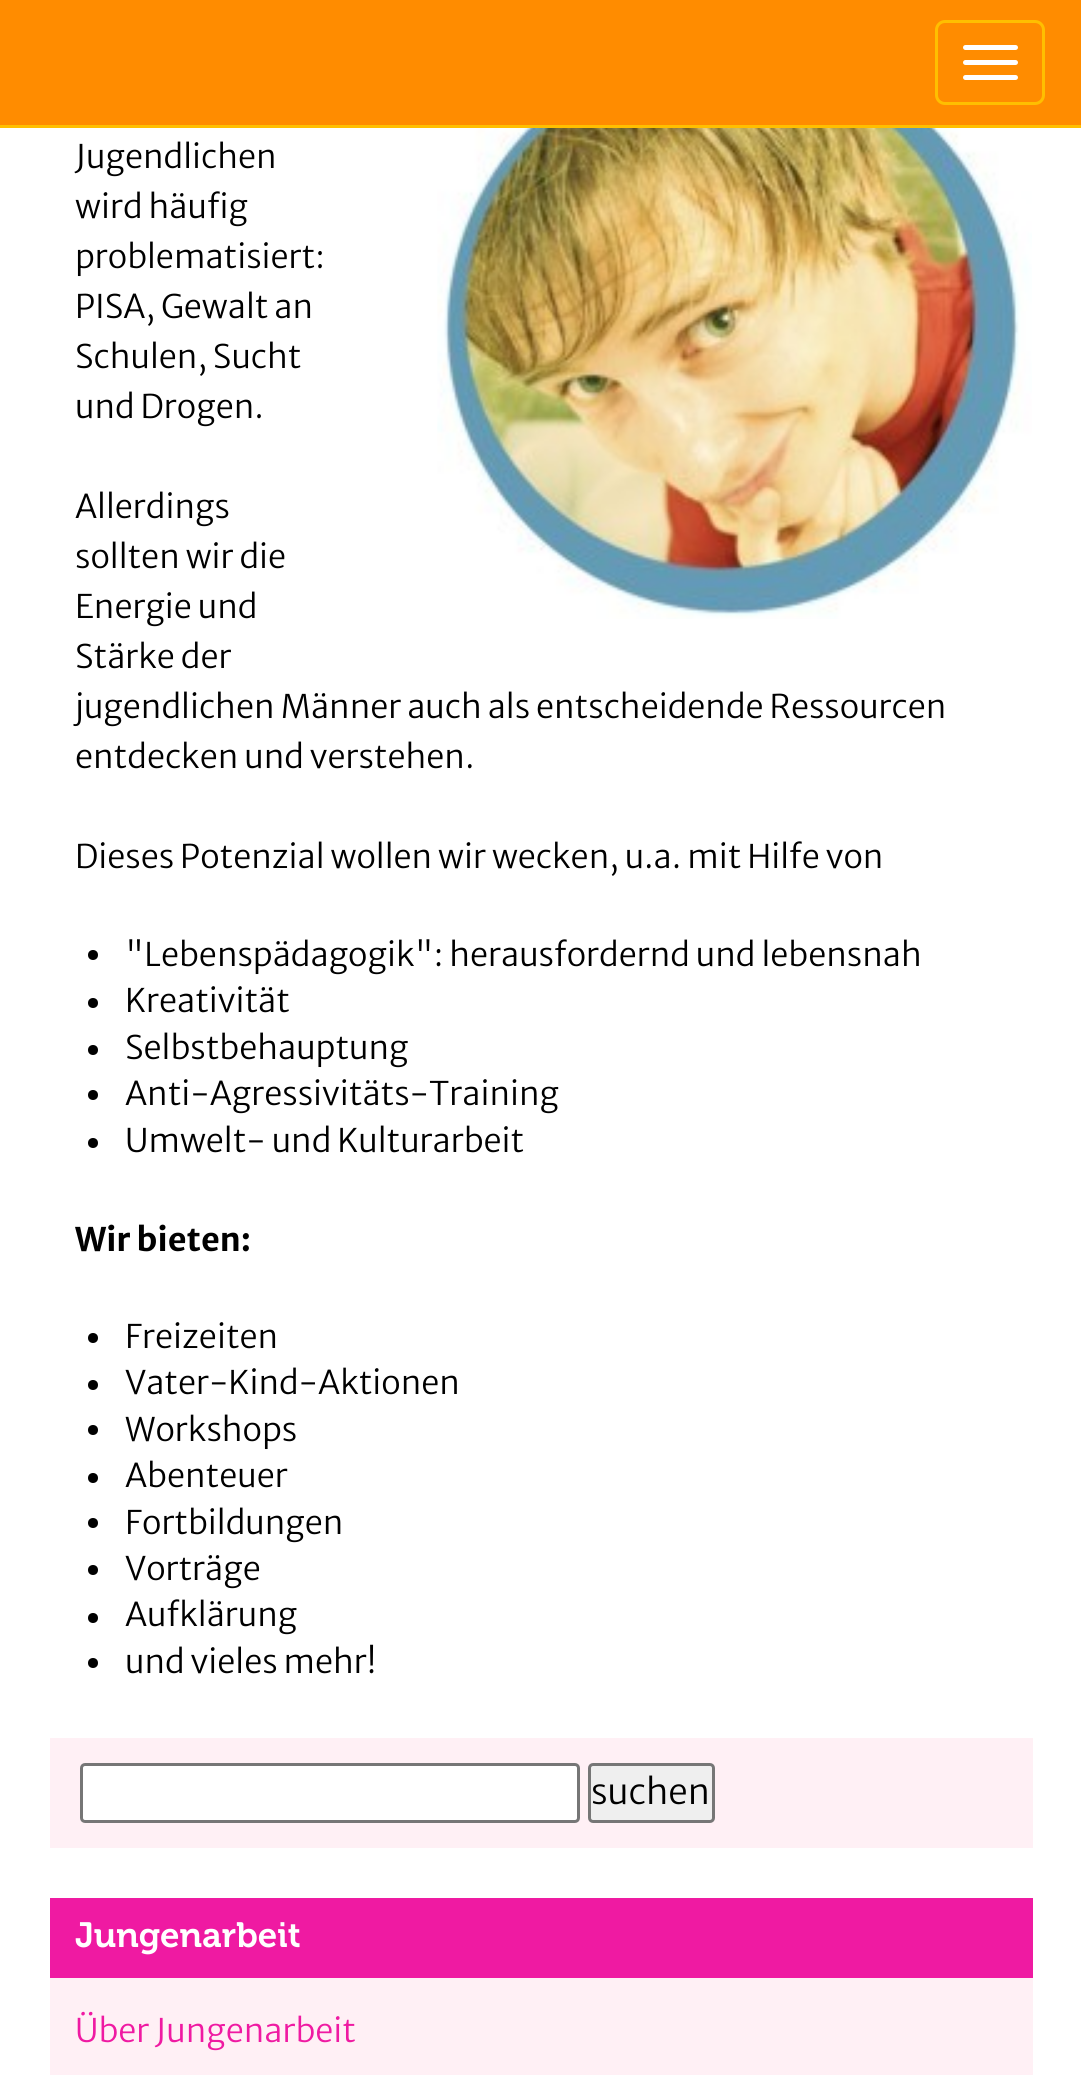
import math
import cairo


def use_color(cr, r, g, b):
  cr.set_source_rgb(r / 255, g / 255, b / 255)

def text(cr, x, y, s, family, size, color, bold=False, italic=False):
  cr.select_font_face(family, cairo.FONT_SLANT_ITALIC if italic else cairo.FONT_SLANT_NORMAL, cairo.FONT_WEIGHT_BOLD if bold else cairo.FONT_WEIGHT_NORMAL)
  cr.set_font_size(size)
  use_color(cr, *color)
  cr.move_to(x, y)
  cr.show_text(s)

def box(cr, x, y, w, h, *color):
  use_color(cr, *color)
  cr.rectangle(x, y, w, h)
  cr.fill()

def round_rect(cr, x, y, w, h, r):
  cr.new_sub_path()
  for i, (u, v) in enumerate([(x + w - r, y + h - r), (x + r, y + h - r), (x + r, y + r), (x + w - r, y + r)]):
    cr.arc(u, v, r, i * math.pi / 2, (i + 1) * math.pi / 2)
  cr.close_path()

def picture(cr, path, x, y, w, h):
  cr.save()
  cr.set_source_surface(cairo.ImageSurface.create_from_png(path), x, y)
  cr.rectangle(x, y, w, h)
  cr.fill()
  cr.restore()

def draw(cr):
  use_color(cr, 255, 255, 255)
  cr.paint()
  box(cr, 0, 0, 1081, 125, 255, 140, 0)
  box(cr, 0, 125, 1081, 3, 255, 191, 0)
  round_rect(cr, 936.5, 21.5, 107, 82, 8.5)
  cr.set_line_width(3)
  cr.stroke()
  use_color(cr, 255, 255, 255)
  round_rect(cr, 963, 45, 55, 5, 2.5)
  cr.fill()
  round_rect(cr, 963, 60, 55, 5, 2.5)
  cr.fill()
  round_rect(cr, 963, 75, 55, 5, 2.5)
  cr.fill()
  picture(cr, "img_01.png", 437, 128, 595, 491)
  use_color(cr, 0, 0, 0)
  cr.arc(93, 955, 5, 0, 2 * math.pi)
  cr.fill()
  cr.arc(93, 1003, 5, 0, 2 * math.pi)
  cr.fill()
  cr.arc(93, 1050, 5, 0, 2 * math.pi)
  cr.fill()
  cr.arc(93, 1095, 5, 0, 2 * math.pi)
  cr.fill()
  cr.arc(93, 1143, 5, 0, 2 * math.pi)
  cr.fill()
  cr.arc(93, 1338, 5, 0, 2 * math.pi)
  cr.fill()
  cr.arc(93, 1385, 5, 0, 2 * math.pi)
  cr.fill()
  cr.arc(93, 1430, 5, 0, 2 * math.pi)
  cr.fill()
  cr.arc(93, 1478, 5, 0, 2 * math.pi)
  cr.fill()
  cr.arc(93, 1523, 5, 0, 2 * math.pi)
  cr.fill()
  cr.arc(93, 1570, 5, 0, 2 * math.pi)
  cr.fill()
  cr.arc(93, 1618, 5, 0, 2 * math.pi)
  cr.fill()
  cr.arc(93, 1663, 5, 0, 2 * math.pi)
  cr.fill()
  box(cr, 50, 1738, 983, 110, 255, 240, 245)
  use_color(cr, 255, 255, 255)
  round_rect(cr, 81.5, 1764.5, 497, 57, 3.5)
  cr.fill_preserve()
  use_color(cr, 118, 118, 118)
  cr.stroke()
  use_color(cr, 239, 239, 239)
  round_rect(cr, 589.5, 1764.5, 124, 57, 3.5)
  cr.fill_preserve()
  use_color(cr, 118, 118, 118)
  cr.stroke()
  box(cr, 50, 1978, 983, 97, 255, 240, 245)
  box(cr, 50, 1898, 983, 80, 239, 26, 162)
  text(cr, 75, 168, "Jugendlichen", "Merriweather Sans Light", 32.5, (0, 0, 0))
  text(cr, 75, 218, "wird häufig", "Merriweather Sans Light", 32.5, (0, 0, 0))
  text(cr, 75, 268, "problematisiert:", "Merriweather Sans Light", 32.5, (0, 0, 0))
  text(cr, 75, 318, "PISA, Gewalt an", "Merriweather Sans Light", 32.5, (0, 0, 0))
  text(cr, 75, 368, "Schulen, Sucht", "Merriweather Sans Light", 32.5, (0, 0, 0))
  text(cr, 75, 418, "und Drogen.", "Merriweather Sans Light", 32.5, (0, 0, 0))
  text(cr, 75, 518, "Allerdings", "Merriweather Sans Light", 32.5, (0, 0, 0))
  text(cr, 75, 568, "sollten wir die", "Merriweather Sans Light", 32.5, (0, 0, 0))
  text(cr, 75, 618, "Energie und", "Merriweather Sans Light", 32.5, (0, 0, 0))
  text(cr, 75, 668, "Stärke der", "Merriweather Sans Light", 32.5, (0, 0, 0))
  text(cr, 75, 718, "jugendlichen Männer auch als entscheidende Ressourcen", "Merriweather Sans Light", 32.5, (0, 0, 0))
  text(cr, 75, 768, "entdecken und verstehen.", "Merriweather Sans Light", 32.5, (0, 0, 0))
  text(cr, 75, 868, "Dieses Potenzial wollen wir wecken, u.a. mit Hilfe von", "Merriweather Sans Light", 32.5, (0, 0, 0))
  text(cr, 125, 966, "\"Lebenspädagogik\": herausfordernd und lebensnah", "Merriweather Sans Light", 32.5, (0, 0, 0))
  text(cr, 125, 1012, "Kreativität", "Merriweather Sans Light", 32.5, (0, 0, 0))
  text(cr, 125, 1059, "Selbstbehauptung", "Merriweather Sans Light", 32.5, (0, 0, 0))
  text(cr, 125, 1105, "Anti-Agressivitäts-Training", "Merriweather Sans Light", 32.5, (0, 0, 0))
  text(cr, 125, 1152, "Umwelt- und Kulturarbeit", "Merriweather Sans Light", 32.5, (0, 0, 0))
  text(cr, 75, 1251, "Wir bieten:", "Merriweather Sans", 32.5, (0, 0, 0), bold=True)
  text(cr, 125, 1348, "Freizeiten", "Merriweather Sans Light", 32.5, (0, 0, 0))
  text(cr, 125, 1394, "Vater-Kind-Aktionen", "Merriweather Sans Light", 32.5, (0, 0, 0))
  text(cr, 125, 1441, "Workshops", "Merriweather Sans Light", 32.5, (0, 0, 0))
  text(cr, 125, 1487, "Abenteuer", "Merriweather Sans Light", 32.5, (0, 0, 0))
  text(cr, 125, 1534, "Fortbildungen", "Merriweather Sans Light", 32.5, (0, 0, 0))
  text(cr, 125, 1580, "Vorträge", "Merriweather Sans Light", 32.5, (0, 0, 0))
  text(cr, 125, 1626, "Aufklärung", "Merriweather Sans Light", 32.5, (0, 0, 0))
  text(cr, 125, 1673, "und vieles mehr!", "Merriweather Sans Light", 32.5, (0, 0, 0))
  text(cr, 591, 1804, "suchen", "Merriweather Sans Light", 35, (0, 0, 0))
  text(cr, 75, 1947, "Jungenarbeit", "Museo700", 35, (255, 255, 255))
  text(cr, 75, 2042, "Über Jungenarbeit", "Merriweather Sans Light", 32.5, (239, 26, 162))


surface = cairo.ImageSurface(cairo.FORMAT_RGB24, 1081, 2075)
cr = cairo.Context(surface)
options = cairo.FontOptions()
options.set_hint_metrics(cairo.HINT_METRICS_OFF)
options.set_hint_style(cairo.HINT_STYLE_NONE)
cr.set_font_options(options)
cr.set_miter_limit(4)
draw(cr)
surface.write_to_png("out.png")
